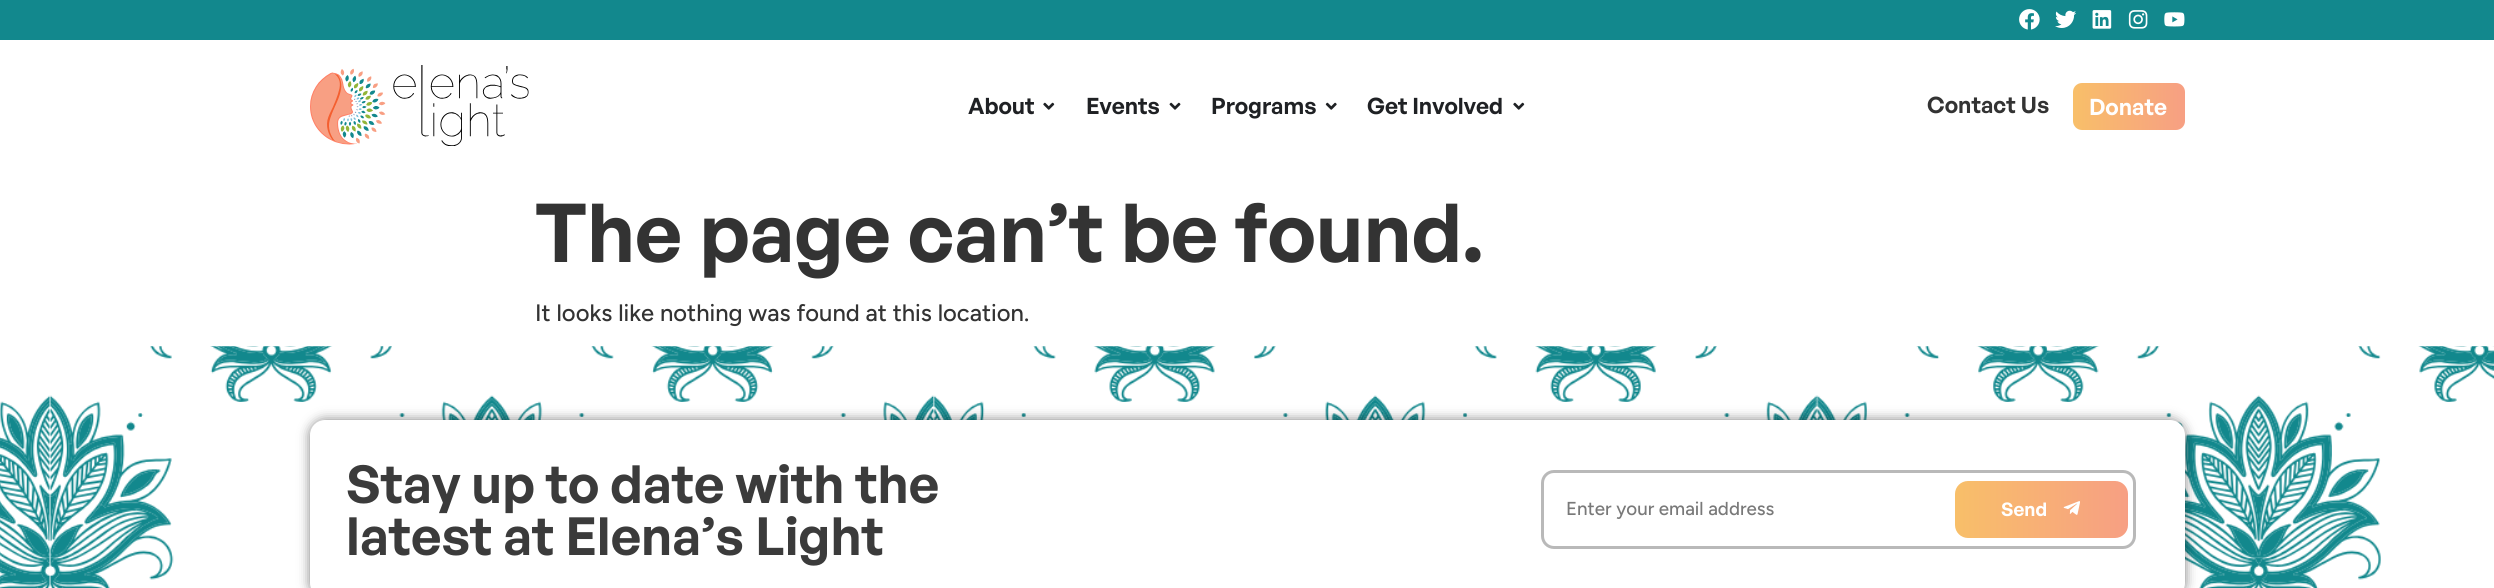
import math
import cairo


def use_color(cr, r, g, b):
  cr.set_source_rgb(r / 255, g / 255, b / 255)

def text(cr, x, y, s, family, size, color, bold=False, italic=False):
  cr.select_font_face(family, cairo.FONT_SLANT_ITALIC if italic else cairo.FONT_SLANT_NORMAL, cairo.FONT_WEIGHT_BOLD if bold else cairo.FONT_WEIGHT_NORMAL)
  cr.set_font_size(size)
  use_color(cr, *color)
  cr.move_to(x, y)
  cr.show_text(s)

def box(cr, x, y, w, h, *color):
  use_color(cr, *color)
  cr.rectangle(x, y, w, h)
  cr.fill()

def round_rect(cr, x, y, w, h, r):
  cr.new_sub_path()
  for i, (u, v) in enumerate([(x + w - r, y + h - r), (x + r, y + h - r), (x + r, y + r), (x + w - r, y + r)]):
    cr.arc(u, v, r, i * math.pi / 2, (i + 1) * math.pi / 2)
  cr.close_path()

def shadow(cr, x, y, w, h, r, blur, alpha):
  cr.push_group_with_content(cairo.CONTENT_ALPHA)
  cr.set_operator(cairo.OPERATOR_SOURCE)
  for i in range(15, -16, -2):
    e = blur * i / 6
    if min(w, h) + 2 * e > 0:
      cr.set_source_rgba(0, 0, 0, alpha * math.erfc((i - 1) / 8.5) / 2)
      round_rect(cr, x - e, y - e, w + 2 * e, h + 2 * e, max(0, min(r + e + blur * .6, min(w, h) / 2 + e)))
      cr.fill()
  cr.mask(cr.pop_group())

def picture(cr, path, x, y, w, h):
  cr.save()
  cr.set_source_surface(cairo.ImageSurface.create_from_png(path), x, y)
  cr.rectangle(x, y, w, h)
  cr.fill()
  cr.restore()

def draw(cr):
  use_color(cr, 255, 255, 255)
  cr.paint()
  box(cr, 0, 0, 2494, 40, 18, 136, 141)
  picture(cr, "img_01.png", 2019, 9, 21, 21)
  picture(cr, "img_02.png", 2055, 10, 21, 18)
  picture(cr, "img_03.png", 2092, 10, 20, 19)
  picture(cr, "img_04.png", 2128, 10, 20, 19)
  picture(cr, "img_05.png", 2164, 12, 21, 15)
  picture(cr, "img_06.png", 310, 65, 219, 81)
  picture(cr, "img_07.png", 1043, 102, 12, 8)
  picture(cr, "img_08.png", 1169, 102, 12, 8)
  picture(cr, "img_09.png", 1325, 102, 12, 8)
  picture(cr, "img_07.png", 1513, 102, 12, 8)
  gradient = cairo.LinearGradient(2073, 106, 2185, 106)
  gradient.add_color_stop_rgba(0, 0.973, 0.749, 0.412, 1)
  gradient.add_color_stop_rgba(1, 0.969, 0.624, 0.514, 1)
  cr.set_source(gradient)
  round_rect(cr, 2073, 83, 112, 47, 9)
  cr.fill()
  picture(cr, "img_10.png", 0, 346, 2494, 242)
  use_color(cr, 0, 0, 0)
  shadow(cr, 310, 420, 1875, 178, 15, 6, 0.5)
  use_color(cr, 255, 255, 255)
  round_rect(cr, 310, 420, 1875, 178, 15)
  cr.fill()
  round_rect(cr, 1542.5, 471.5, 592, 76, 11.5)
  use_color(cr, 185, 185, 185)
  cr.set_line_width(3)
  cr.stroke()
  gradient = cairo.LinearGradient(1955, 509, 2128, 509)
  gradient.add_color_stop_rgba(0, 0.973, 0.749, 0.412, 1)
  gradient.add_color_stop_rgba(1, 0.969, 0.624, 0.514, 1)
  cr.set_source(gradient)
  round_rect(cr, 1955, 481, 173, 57, 13)
  cr.fill()
  picture(cr, "img_11.png", 2063, 501, 17, 14)
  text(cr, 968, 114, "About", "General Sans SemiBold", 22.5, (31, 33, 36))
  text(cr, 1086, 114, "Events", "General Sans SemiBold", 22.5, (31, 33, 36))
  text(cr, 1211, 114, "Programs", "General Sans SemiBold", 22.5, (31, 33, 36))
  text(cr, 1367, 114, "Get Involved", "General Sans SemiBold", 22.5, (31, 33, 36))
  text(cr, 1927, 113, "Contact Us", "General Sans SemiBold", 22.5, (51, 51, 51))
  text(cr, 2089, 115, "Donate", "General Sans SemiBold", 22.5, (255, 255, 255))
  text(cr, 535, 262, "The page can’t be found.", "General Sans SemiBold", 81.25, (51, 51, 51))
  text(cr, 535, 321, "It looks like nothing was found at this location.", "Figtree Medium", 23.75, (51, 51, 51))
  text(cr, 346, 503, "Stay up to date with the", "General Sans SemiBold", 52.5, (59, 59, 59))
  text(cr, 346, 555, "latest at Elena’s Light", "General Sans SemiBold", 52.5, (59, 59, 59))
  text(cr, 1566, 515, "Enter your email address", "Figtree Medium", 18.75, (121, 121, 121))
  text(cr, 2001, 516, "Send", "General Sans SemiBold", 18.75, (255, 255, 255))


surface = cairo.ImageSurface(cairo.FORMAT_RGB24, 2494, 588)
cr = cairo.Context(surface)
options = cairo.FontOptions()
options.set_hint_metrics(cairo.HINT_METRICS_OFF)
options.set_hint_style(cairo.HINT_STYLE_NONE)
cr.set_font_options(options)
cr.set_miter_limit(4)
draw(cr)
surface.write_to_png("out.png")
